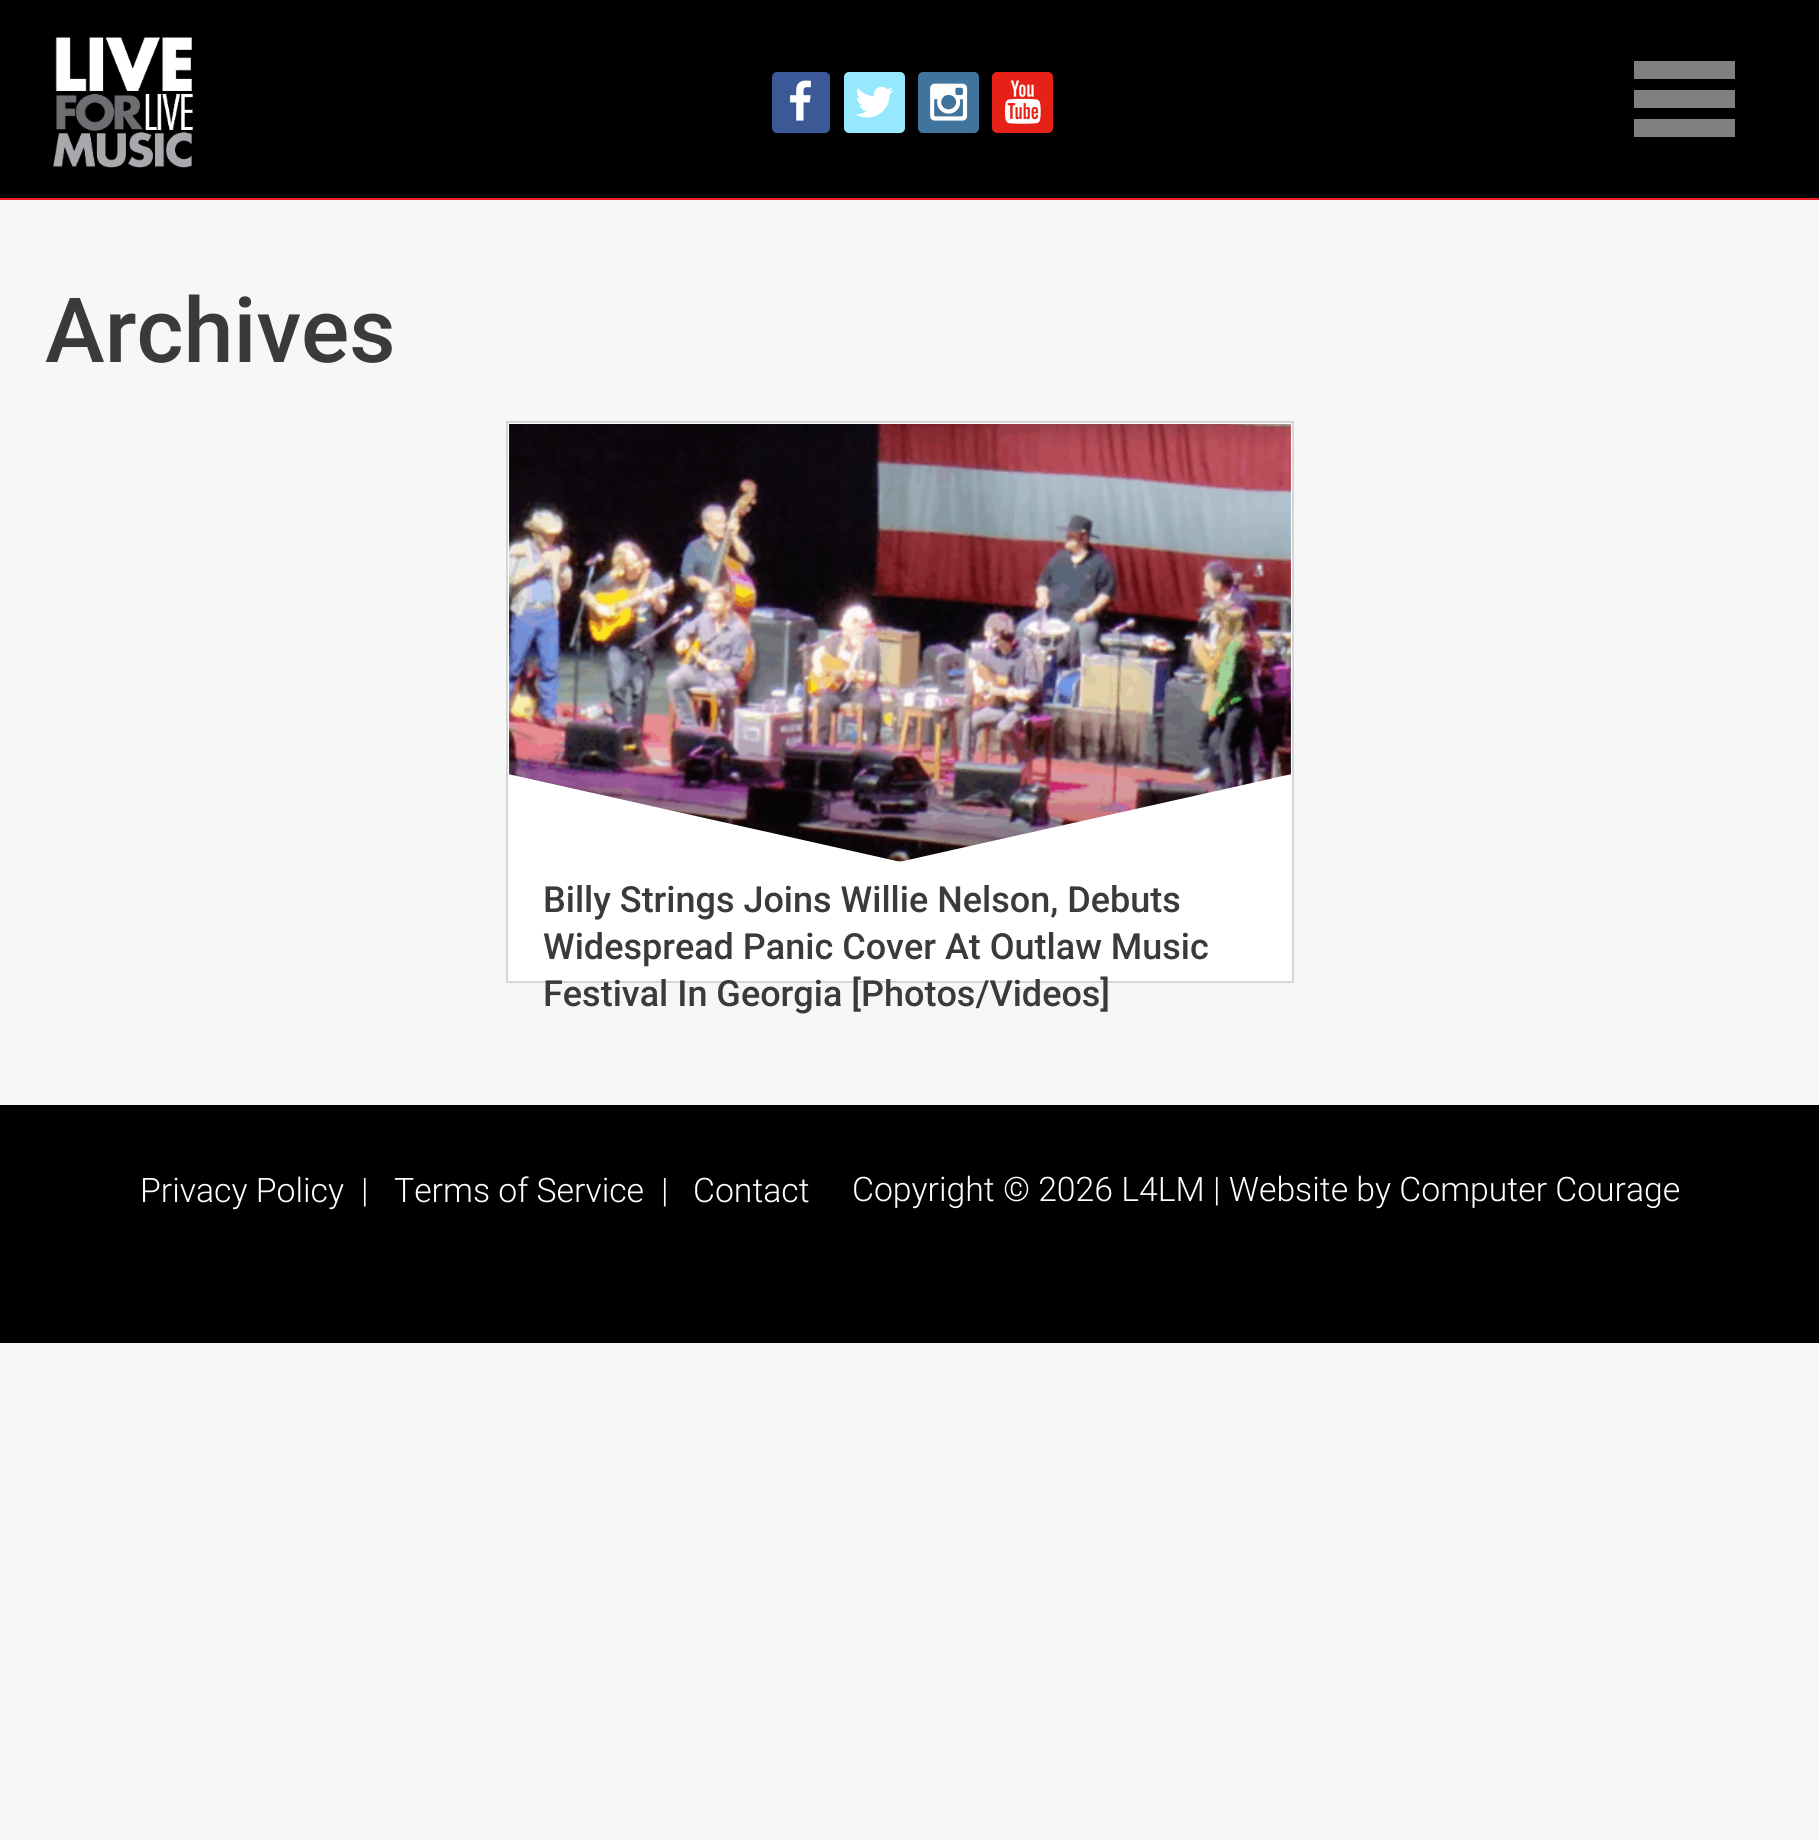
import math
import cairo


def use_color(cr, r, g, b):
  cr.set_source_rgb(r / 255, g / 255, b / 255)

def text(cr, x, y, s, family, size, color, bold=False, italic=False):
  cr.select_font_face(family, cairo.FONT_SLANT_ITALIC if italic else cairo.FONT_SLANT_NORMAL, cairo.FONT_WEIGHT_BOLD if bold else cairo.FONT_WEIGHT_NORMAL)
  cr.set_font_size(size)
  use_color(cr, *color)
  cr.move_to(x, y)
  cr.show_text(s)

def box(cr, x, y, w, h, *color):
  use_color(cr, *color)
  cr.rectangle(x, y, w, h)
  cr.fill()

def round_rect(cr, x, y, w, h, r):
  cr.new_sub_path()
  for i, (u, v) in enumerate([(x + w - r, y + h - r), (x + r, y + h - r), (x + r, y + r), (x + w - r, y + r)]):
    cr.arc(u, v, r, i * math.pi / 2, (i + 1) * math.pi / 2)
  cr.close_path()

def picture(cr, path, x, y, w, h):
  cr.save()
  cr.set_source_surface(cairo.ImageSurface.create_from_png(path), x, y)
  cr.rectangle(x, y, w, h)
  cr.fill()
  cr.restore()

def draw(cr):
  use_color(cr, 247, 247, 247)
  cr.paint()
  box(cr, 0, 0, 1819, 198, 0, 0, 0)
  box(cr, 0, 198, 1819, 2, 238, 28, 37)
  picture(cr, "img_01.png", 53, 37, 141, 131)
  use_color(cr, 59, 88, 151)
  round_rect(cr, 772, 72, 58, 61, 5)
  cr.fill()
  picture(cr, "img_02.png", 790, 80, 21, 41)
  use_color(cr, 150, 232, 254)
  round_rect(cr, 844, 72, 61, 61, 5)
  cr.fill()
  picture(cr, "img_03.png", 855, 86, 39, 32)
  use_color(cr, 64, 116, 156)
  round_rect(cr, 918, 72, 61, 61, 5)
  cr.fill()
  picture(cr, "img_04.png", 930, 83, 38, 38)
  use_color(cr, 230, 33, 23)
  round_rect(cr, 992, 72, 61, 61, 5)
  cr.fill()
  picture(cr, "img_05.png", 1004, 80, 37, 44)
  box(cr, 1634, 61, 101, 18, 128, 128, 128)
  box(cr, 1634, 90, 101, 18, 128, 128, 128)
  box(cr, 1634, 119, 101, 18, 128, 128, 128)
  use_color(cr, 255, 255, 255)
  cr.rectangle(507, 422, 786, 560)
  cr.fill_preserve()
  use_color(cr, 213, 214, 214)
  cr.stroke()
  picture(cr, "img_06.png", 509, 424, 782, 438)
  box(cr, 0, 1105, 1819, 238, 0, 0, 0)
  text(cr, 45, 362, "Archives", "Roboto Medium", 90, (58, 58, 58))
  text(cr, 543, 912, "Billy Strings Joins Willie Nelson, Debuts", "Roboto Medium", 36, (58, 58, 58))
  text(cr, 543, 959, "Widespread Panic Cover At Outlaw Music", "Roboto Medium", 36, (58, 58, 58))
  text(cr, 543, 1006, "Festival In Georgia [Photos/Videos]", "Roboto Medium", 36, (58, 58, 58))
  text(cr, 140, 1202, "Privacy Policy", "Roboto Light", 33.75, (255, 255, 255))
  text(cr, 361, 1202, "|", "Roboto Light", 33.75, (255, 255, 255))
  text(cr, 394, 1202, "Terms of Service", "Roboto Light", 33.75, (255, 255, 255))
  text(cr, 661, 1202, "|", "Roboto Light", 33.75, (255, 255, 255))
  text(cr, 693, 1202, "Contact", "Roboto Light", 33.75, (255, 255, 255))
  text(cr, 852, 1201, "Copyright © 2026 L4LM | Website by Computer Courage", "Roboto Light", 33.75, (255, 255, 255))


surface = cairo.ImageSurface(cairo.FORMAT_RGB24, 1819, 1840)
cr = cairo.Context(surface)
options = cairo.FontOptions()
options.set_hint_metrics(cairo.HINT_METRICS_OFF)
options.set_hint_style(cairo.HINT_STYLE_NONE)
cr.set_font_options(options)
cr.set_miter_limit(4)
draw(cr)
surface.write_to_png("out.png")
